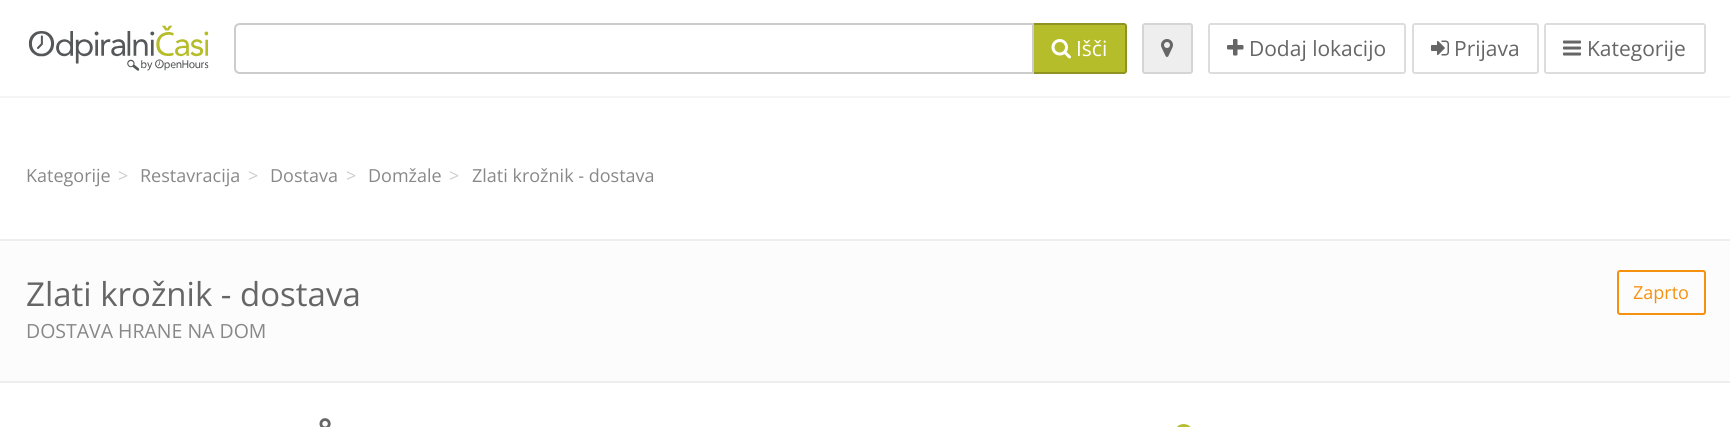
import math
import cairo


def use_color(cr, r, g, b):
  cr.set_source_rgb(r / 255, g / 255, b / 255)

def text(cr, x, y, s, family, size, color, bold=False, italic=False):
  cr.select_font_face(family, cairo.FONT_SLANT_ITALIC if italic else cairo.FONT_SLANT_NORMAL, cairo.FONT_WEIGHT_BOLD if bold else cairo.FONT_WEIGHT_NORMAL)
  cr.set_font_size(size)
  use_color(cr, *color)
  cr.move_to(x, y)
  cr.show_text(s)

def box(cr, x, y, w, h, *color):
  use_color(cr, *color)
  cr.rectangle(x, y, w, h)
  cr.fill()

def round_rect(cr, x, y, w, h, r):
  cr.new_sub_path()
  for i, (u, v) in enumerate([(x + w - r, y + h - r), (x + r, y + h - r), (x + r, y + r), (x + w - r, y + r)]):
    cr.arc(u, v, r, i * math.pi / 2, (i + 1) * math.pi / 2)
  cr.close_path()

def picture(cr, path, x, y, w, h):
  cr.save()
  cr.set_source_surface(cairo.ImageSurface.create_from_png(path), x, y)
  cr.rectangle(x, y, w, h)
  cr.fill()
  cr.restore()

def draw(cr):
  use_color(cr, 255, 255, 255)
  cr.paint()
  box(cr, 0, 96, 1730, 2, 245, 245, 245)
  picture(cr, "img_01.png", 28, 25, 181, 46)
  use_color(cr, 182, 189, 42)
  cr.new_path()
  cr.move_to(1033, 24)
  cr.line_to(1124, 24)
  cr.curve_to(1125, 24, 1126, 25, 1126, 26)
  cr.line_to(1126, 71)
  cr.curve_to(1126, 72, 1125, 73, 1124, 73)
  cr.line_to(1033, 73)
  cr.close_path()
  cr.fill_preserve()
  use_color(cr, 142, 147, 33)
  cr.stroke()
  use_color(cr, 255, 255, 255)
  cr.new_path()
  cr.move_to(240, 24)
  cr.line_to(1033, 24)
  cr.line_to(1033, 73)
  cr.line_to(240, 73)
  cr.curve_to(237, 73, 235, 71, 235, 68)
  cr.line_to(235, 29)
  cr.curve_to(235, 26, 237, 24, 240, 24)
  cr.close_path()
  cr.fill_preserve()
  use_color(cr, 204, 204, 204)
  cr.stroke()
  picture(cr, "img_02.png", 1051, 39, 20, 20)
  use_color(cr, 238, 238, 238)
  round_rect(cr, 1143, 24, 49, 49, 2)
  cr.fill_preserve()
  use_color(cr, 213, 213, 213)
  cr.stroke()
  picture(cr, "img_03.png", 1161, 39, 12, 18)
  round_rect(cr, 1209, 24, 196, 49, 2)
  use_color(cr, 221, 221, 221)
  cr.stroke()
  picture(cr, "img_04.png", 1227, 39, 17, 17)
  round_rect(cr, 1413, 24, 125, 49, 2)
  cr.stroke()
  picture(cr, "img_05.png", 1431, 40, 18, 16)
  round_rect(cr, 1545, 24, 160, 49, 2)
  cr.stroke()
  picture(cr, "img_06.png", 1563, 40, 18, 16)
  box(cr, 0, 241, 1730, 140, 252, 252, 252)
  box(cr, 0, 239, 1730, 2, 238, 238, 238)
  box(cr, 0, 381, 1730, 2, 238, 238, 238)
  round_rect(cr, 1618, 271, 87, 43, 2)
  use_color(cr, 246, 145, 16)
  cr.stroke()
  picture(cr, "img_07.png", 319, 418, 12, 9)
  picture(cr, "img_08.png", 1177, 424, 14, 3)
  text(cr, 1076, 56, "Išči", "Open Sans", 21, (255, 255, 255))
  text(cr, 1249, 56, "Dodaj lokacijo", "Open Sans", 21, (102, 102, 102))
  text(cr, 1454, 56, "Prijava", "Open Sans", 21, (102, 102, 102))
  text(cr, 1587, 56, "Kategorije", "Open Sans", 21, (102, 102, 102))
  text(cr, 26, 182, "Kategorije", "Open Sans", 18, (136, 136, 136))
  text(cr, 118, 182, ">", "Open Sans", 18, (204, 204, 204))
  text(cr, 140, 182, "Restavracija", "Open Sans", 18, (136, 136, 136))
  text(cr, 248, 182, ">", "Open Sans", 18, (204, 204, 204))
  text(cr, 270, 182, "Dostava", "Open Sans", 18, (136, 136, 136))
  text(cr, 346, 182, ">", "Open Sans", 18, (204, 204, 204))
  text(cr, 368, 182, "Domžale", "Open Sans", 18, (136, 136, 136))
  text(cr, 449, 182, ">", "Open Sans", 18, (204, 204, 204))
  text(cr, 472, 182, "Zlati krožnik - dostava", "Open Sans", 18, (136, 136, 136))
  text(cr, 26, 306, "Zlati krožnik - dostava", "Open Sans", 33, (102, 102, 102))
  text(cr, 26, 338, "DOSTAVA HRANE NA DOM", "Open Sans", 19.5, (136, 136, 136))
  text(cr, 1633, 299, "Zaprto", "Open Sans", 18, (246, 145, 16))


surface = cairo.ImageSurface(cairo.FORMAT_RGB24, 1730, 427)
cr = cairo.Context(surface)
options = cairo.FontOptions()
options.set_hint_metrics(cairo.HINT_METRICS_OFF)
options.set_hint_style(cairo.HINT_STYLE_NONE)
cr.set_font_options(options)
cr.set_miter_limit(4)
draw(cr)
surface.write_to_png("out.png")
